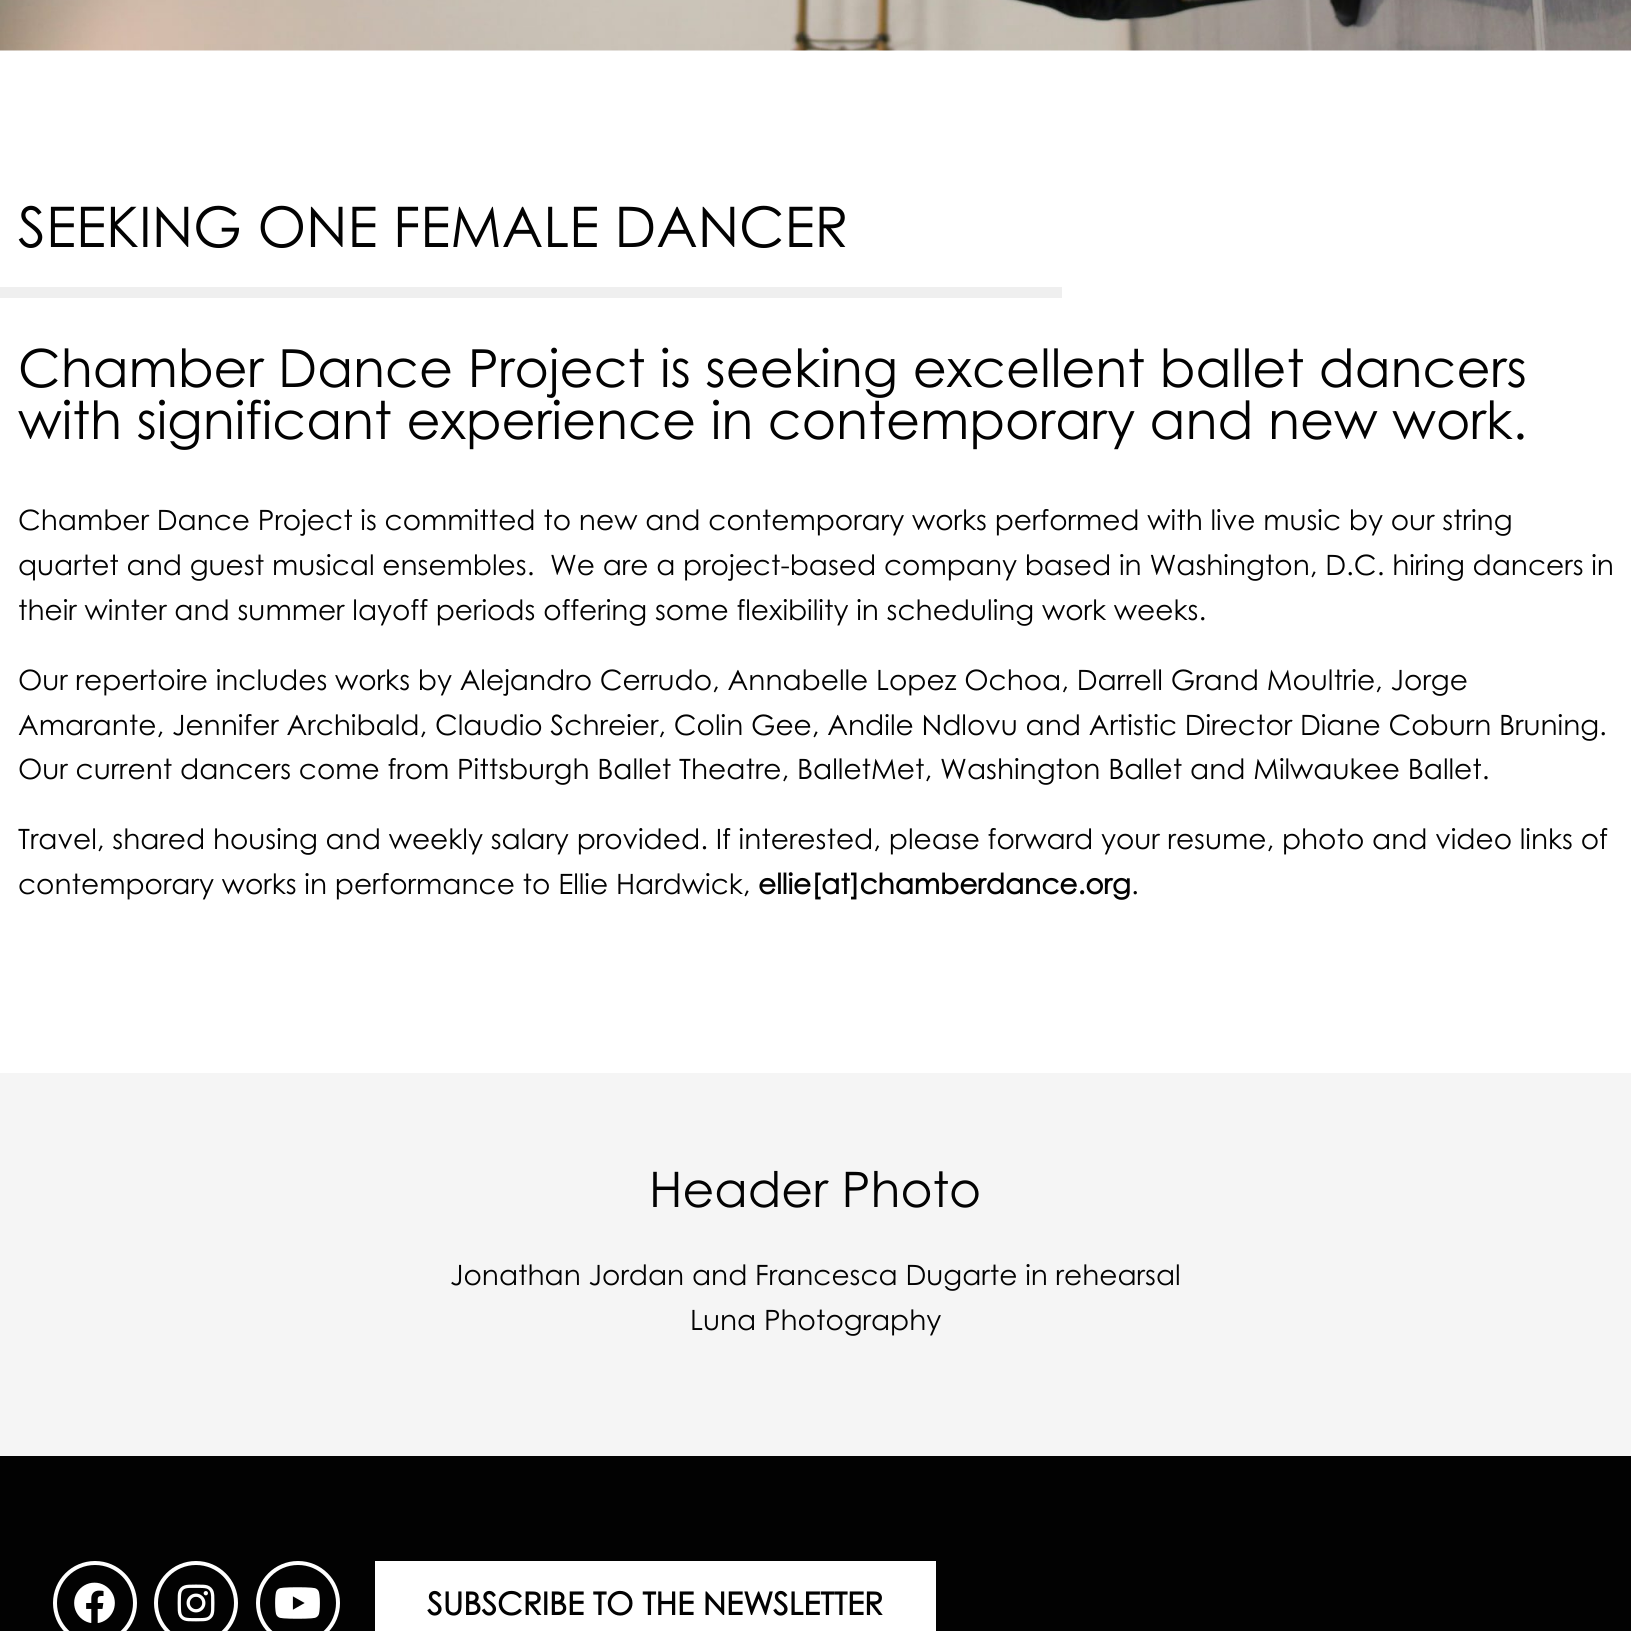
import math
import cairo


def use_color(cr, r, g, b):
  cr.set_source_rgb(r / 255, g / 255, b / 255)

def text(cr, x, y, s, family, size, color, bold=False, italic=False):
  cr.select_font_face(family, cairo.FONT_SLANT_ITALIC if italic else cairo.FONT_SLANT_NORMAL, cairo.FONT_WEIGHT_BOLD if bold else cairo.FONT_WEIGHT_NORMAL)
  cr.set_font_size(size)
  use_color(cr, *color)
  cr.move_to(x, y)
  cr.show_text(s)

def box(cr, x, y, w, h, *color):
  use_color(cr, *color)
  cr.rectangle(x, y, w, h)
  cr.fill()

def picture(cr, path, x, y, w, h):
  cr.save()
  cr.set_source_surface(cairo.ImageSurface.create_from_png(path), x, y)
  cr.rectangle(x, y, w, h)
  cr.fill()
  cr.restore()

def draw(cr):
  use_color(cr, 255, 255, 255)
  cr.paint()
  picture(cr, "img_01.png", 0, 0, 1631, 51)
  box(cr, 0, 287, 1062, 11, 239, 239, 239)
  box(cr, 0, 1073, 1631, 383, 245, 245, 245)
  box(cr, 0, 1456, 1631, 175, 2, 2, 2)
  cr.arc(95, 1603, 40, 0, 2 * math.pi)
  use_color(cr, 255, 255, 255)
  cr.set_line_width(4)
  cr.stroke()
  picture(cr, "img_02.png", 74, 1582, 41, 41)
  cr.arc(196, 1603, 40, 0, 2 * math.pi)
  cr.stroke()
  picture(cr, "img_03.png", 177, 1584, 38, 38)
  cr.arc(298, 1603, 40, 0, 2 * math.pi)
  cr.stroke()
  picture(cr, "img_04.png", 275, 1587, 45, 32)
  box(cr, 375, 1561, 561, 70, 255, 255, 255)
  text(cr, 18, 247, "SEEKING ONE FEMALE DANCER", "Century Gothic", 56, (2, 2, 2))
  text(cr, 18, 387, "Chamber Dance Project is seeking excellent ballet dancers", "Century Gothic", 52.5, (2, 2, 2))
  text(cr, 18, 439, "with significant experience in contemporary and new work.", "Century Gothic", 52.5, (2, 2, 2))
  text(cr, 18, 530, "Chamber Dance Project is committed to new and contemporary works performed with live music by our string", "Century Gothic", 28, (2, 2, 2))
  text(cr, 18, 575, "quartet and guest musical ensembles.  We are a project-based company based in Washington, D.C. hiring dancers in", "Century Gothic", 28, (2, 2, 2))
  text(cr, 18, 620, "their winter and summer layoff periods offering some flexibility in scheduling work weeks.", "Century Gothic", 28, (2, 2, 2))
  text(cr, 18, 690, "Our repertoire includes works by Alejandro Cerrudo, Annabelle Lopez Ochoa, Darrell Grand Moultrie, Jorge", "Century Gothic", 28, (2, 2, 2))
  text(cr, 18, 735, "Amarante, Jennifer Archibald, Claudio Schreier, Colin Gee, Andile Ndlovu and Artistic Director Diane Coburn Bruning.", "Century Gothic", 28, (2, 2, 2))
  text(cr, 18, 779, "Our current dancers come from Pittsburgh Ballet Theatre, BalletMet, Washington Ballet and Milwaukee Ballet.", "Century Gothic", 28, (2, 2, 2))
  text(cr, 18, 849, "Travel, shared housing and weekly salary provided. If interested, please forward your resume, photo and video links of", "Century Gothic", 28, (2, 2, 2))
  text(cr, 18, 894, "contemporary works in performance to Ellie Hardwick,", "Century Gothic", 28, (2, 2, 2))
  text(cr, 758, 894, "ellie[at]chamberdance.org", "Century Gothic", 28, (2, 2, 2), bold=True)
  text(cr, 1131, 894, ".", "Century Gothic", 28, (2, 2, 2))
  text(cr, 649, 1207, "Header Photo", "Century Gothic", 49, (2, 2, 2))
  text(cr, 450, 1285, "Jonathan Jordan and Francesca Dugarte in rehearsal", "Century Gothic", 28, (2, 2, 2))
  text(cr, 690, 1330, "Luna Photography", "Century Gothic", 28, (2, 2, 2))
  text(cr, 427, 1615, "SUBSCRIBE TO THE NEWSLETTER", "Century Gothic", 31.5, (2, 2, 2), bold=True)


surface = cairo.ImageSurface(cairo.FORMAT_RGB24, 1631, 1631)
cr = cairo.Context(surface)
options = cairo.FontOptions()
options.set_hint_metrics(cairo.HINT_METRICS_OFF)
options.set_hint_style(cairo.HINT_STYLE_NONE)
cr.set_font_options(options)
cr.set_miter_limit(4)
draw(cr)
surface.write_to_png("out.png")
